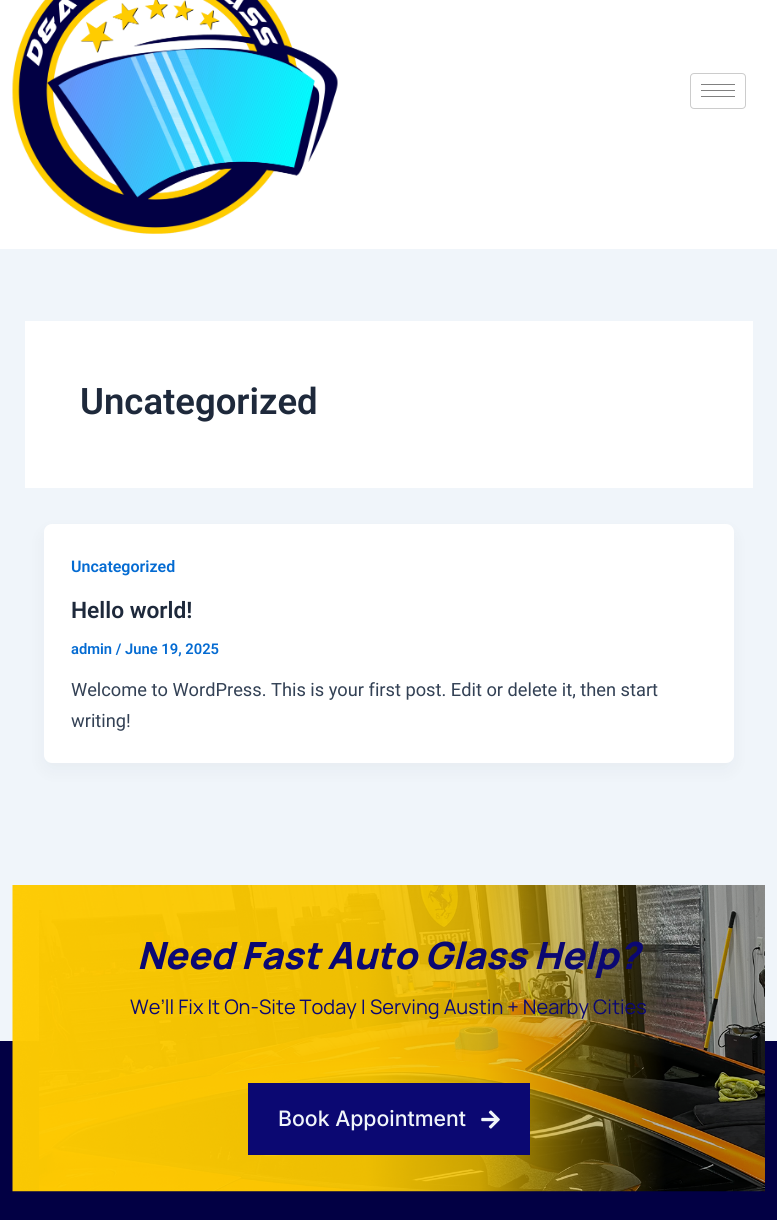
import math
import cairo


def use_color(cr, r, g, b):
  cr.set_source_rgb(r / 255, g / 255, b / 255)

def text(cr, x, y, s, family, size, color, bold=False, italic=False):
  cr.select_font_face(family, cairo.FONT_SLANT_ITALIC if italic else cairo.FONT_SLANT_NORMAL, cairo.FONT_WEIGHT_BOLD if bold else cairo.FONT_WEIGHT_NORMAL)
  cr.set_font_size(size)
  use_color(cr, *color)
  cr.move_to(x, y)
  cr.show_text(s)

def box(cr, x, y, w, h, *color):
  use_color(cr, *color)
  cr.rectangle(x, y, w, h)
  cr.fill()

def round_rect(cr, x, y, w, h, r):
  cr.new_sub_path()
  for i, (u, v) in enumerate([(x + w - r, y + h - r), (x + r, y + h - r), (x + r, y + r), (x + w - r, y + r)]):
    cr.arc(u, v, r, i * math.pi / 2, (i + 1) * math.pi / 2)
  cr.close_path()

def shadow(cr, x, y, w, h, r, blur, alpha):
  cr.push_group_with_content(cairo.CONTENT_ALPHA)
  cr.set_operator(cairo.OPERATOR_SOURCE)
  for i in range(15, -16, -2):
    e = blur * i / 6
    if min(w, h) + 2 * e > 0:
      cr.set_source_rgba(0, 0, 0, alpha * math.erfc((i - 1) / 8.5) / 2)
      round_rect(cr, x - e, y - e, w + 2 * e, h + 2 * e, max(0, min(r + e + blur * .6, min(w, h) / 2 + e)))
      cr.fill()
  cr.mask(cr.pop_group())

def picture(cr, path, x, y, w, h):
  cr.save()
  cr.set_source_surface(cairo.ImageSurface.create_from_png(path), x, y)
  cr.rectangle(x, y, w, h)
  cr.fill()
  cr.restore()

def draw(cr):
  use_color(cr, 240, 245, 250)
  cr.paint()
  box(cr, 0, 0, 777, 249, 255, 255, 255)
  picture(cr, "img_01.png", 12, 0, 326, 234)
  round_rect(cr, 690.5, 73.5, 55, 35, 3.5)
  cr.set_source_rgba(0, 0, 0, 0.2)
  cr.set_line_width(1)
  cr.stroke()
  box(cr, 701, 84, 34, 1, 128, 128, 128)
  box(cr, 701, 90, 34, 1, 128, 128, 128)
  box(cr, 701, 96, 34, 1, 128, 128, 128)
  box(cr, 25, 321, 728, 167, 255, 255, 255)
  use_color(cr, 16, 24, 40)
  shadow(cr, 46, 534, 685, 234, 5, 9.5, 0.05)
  use_color(cr, 255, 255, 255)
  round_rect(cr, 44, 524, 690, 239, 8)
  cr.fill()
  box(cr, 0, 1041, 777, 179, 2, 0, 68)
  picture(cr, "img_02.png", 12, 885, 753, 307)
  box(cr, 248, 1083, 282, 72, 11, 8, 114)
  picture(cr, "img_03.png", 481, 1110, 19, 19)
  text(cr, 80, 414, "Uncategorized", "Roboto SemiBold", 36.5, (30, 41, 59))
  text(cr, 71, 572, "Uncategorized", "Roboto SemiBold", 16, (4, 107, 210))
  text(cr, 71, 618, "Hello world!", "Roboto SemiBold", 22.75, (30, 41, 59))
  text(cr, 71, 654, "admin / June 19, 2025", "Roboto SemiBold", 14.75, (4, 107, 210))
  text(cr, 71, 696, "Welcome to WordPress. This is your first post. Edit or delete it, then start", "Roboto", 18.25, (51, 65, 85))
  text(cr, 71, 727, "writing!", "Roboto", 18.25, (51, 65, 85))
  text(cr, 137, 969, "Need Fast Auto Glass Help?", "Manrope ExtraBold", 37.5, (11, 8, 114), italic=True)
  text(cr, 130, 1014, "We’ll Fix It On-Site Today | Serving Austin + Nearby Cities", "Manrope", 20, (11, 8, 114))
  text(cr, 278, 1126, "Book Appointment", "Inter Medium", 21.25, (240, 245, 250))


surface = cairo.ImageSurface(cairo.FORMAT_RGB24, 777, 1220)
cr = cairo.Context(surface)
options = cairo.FontOptions()
options.set_hint_metrics(cairo.HINT_METRICS_OFF)
options.set_hint_style(cairo.HINT_STYLE_NONE)
cr.set_font_options(options)
cr.set_miter_limit(4)
draw(cr)
surface.write_to_png("out.png")
